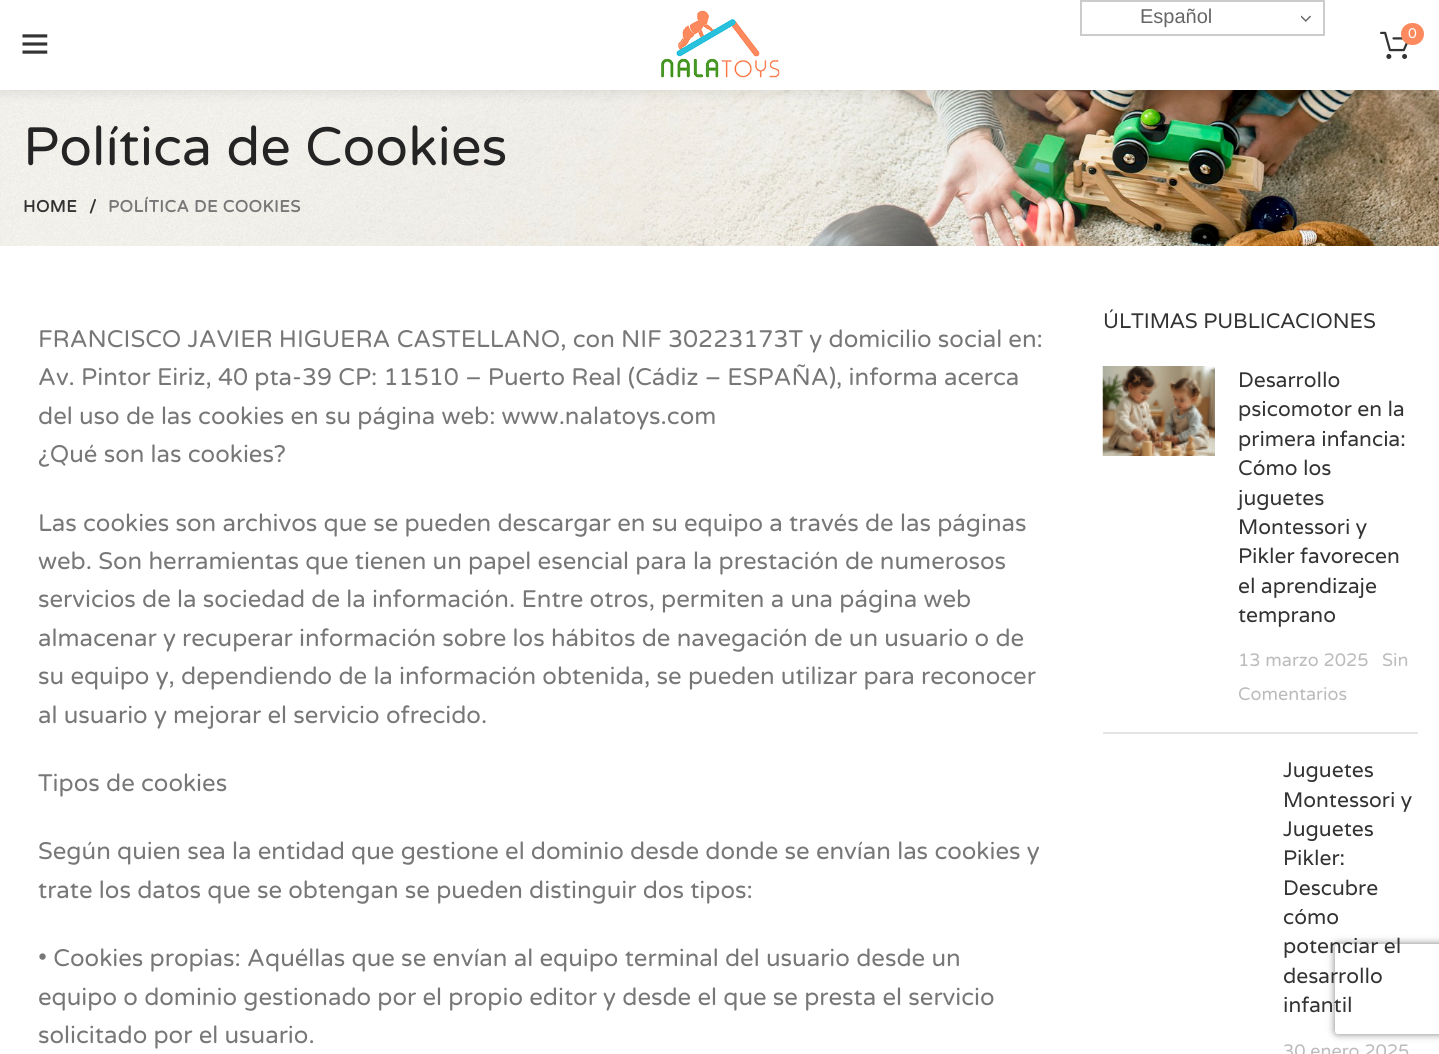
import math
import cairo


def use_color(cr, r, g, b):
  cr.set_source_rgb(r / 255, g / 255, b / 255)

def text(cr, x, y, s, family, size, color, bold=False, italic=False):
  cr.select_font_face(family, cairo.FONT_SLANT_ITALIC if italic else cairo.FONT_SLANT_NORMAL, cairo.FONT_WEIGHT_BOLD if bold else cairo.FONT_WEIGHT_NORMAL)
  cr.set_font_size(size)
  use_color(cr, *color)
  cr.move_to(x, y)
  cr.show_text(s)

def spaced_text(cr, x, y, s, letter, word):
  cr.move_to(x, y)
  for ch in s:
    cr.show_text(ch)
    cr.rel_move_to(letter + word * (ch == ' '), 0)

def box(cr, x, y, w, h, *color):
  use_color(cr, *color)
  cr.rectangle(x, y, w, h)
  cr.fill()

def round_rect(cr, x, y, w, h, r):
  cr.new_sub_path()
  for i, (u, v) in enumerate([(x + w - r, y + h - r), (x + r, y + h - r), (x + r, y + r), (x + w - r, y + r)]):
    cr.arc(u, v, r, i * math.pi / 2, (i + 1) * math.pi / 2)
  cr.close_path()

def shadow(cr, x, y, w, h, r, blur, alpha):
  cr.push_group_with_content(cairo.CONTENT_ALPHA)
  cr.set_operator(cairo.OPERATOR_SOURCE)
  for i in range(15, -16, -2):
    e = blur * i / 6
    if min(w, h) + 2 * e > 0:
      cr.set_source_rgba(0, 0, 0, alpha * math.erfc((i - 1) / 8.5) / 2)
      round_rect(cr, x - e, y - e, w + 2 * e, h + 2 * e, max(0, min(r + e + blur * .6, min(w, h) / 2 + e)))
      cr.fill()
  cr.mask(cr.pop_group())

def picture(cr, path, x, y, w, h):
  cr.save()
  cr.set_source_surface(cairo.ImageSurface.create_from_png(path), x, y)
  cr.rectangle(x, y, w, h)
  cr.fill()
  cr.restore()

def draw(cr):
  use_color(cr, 255, 255, 255)
  cr.paint()
  picture(cr, "img_05.png", 0, 90, 1439, 156)
  use_color(cr, 0, 0, 0)
  shadow(cr, 0, 2, 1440, 90, 0, 6, 0.1)
  box(cr, 0, 0, 1439, 90, 255, 255, 255)
  cr.rectangle(1081, 1, 243, 34)
  use_color(cr, 204, 204, 204)
  cr.stroke()
  picture(cr, "img_01.png", 1301, 15, 10, 7)
  picture(cr, "img_02.png", 22, 34, 26, 20)
  picture(cr, "img_03.png", 661, 10, 119, 68)
  picture(cr, "img_04.png", 1380, 31, 28, 28)
  use_color(cr, 253, 138, 94)
  round_rect(cr, 1401, 23, 23, 22, 11)
  cr.fill()
  box(cr, 1103, 732, 315, 2, 228, 228, 228)
  picture(cr, "img_06.png", 1102, 366, 113, 90)
  cr.save()
  cr.set_fill_rule(cairo.FILL_RULE_EVEN_ODD)
  cr.new_path()
  cr.move_to(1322, 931)
  cr.line_to(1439, 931)
  cr.line_to(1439, 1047)
  cr.line_to(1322, 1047)
  cr.close_path()
  cr.move_to(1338, 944)
  cr.line_to(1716, 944)
  cr.curve_to(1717.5, 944, 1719, 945.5, 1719, 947)
  cr.line_to(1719, 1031)
  cr.curve_to(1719, 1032.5, 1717.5, 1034, 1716, 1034)
  cr.line_to(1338, 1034)
  cr.curve_to(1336.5, 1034, 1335, 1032.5, 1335, 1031)
  cr.line_to(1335, 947)
  cr.curve_to(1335, 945.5, 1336.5, 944, 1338, 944)
  cr.close_path()
  cr.clip()
  use_color(cr, 128, 128, 128)
  shadow(cr, 1335, 944, 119, 90, 3, 4, 1)
  cr.restore()
  text(cr, 1140, 23, "Español", "Liberation Sans", 20, (102, 102, 102))
  text(cr, 1408, 38, "0", "Varela Round", 14, (255, 255, 255))
  text(cr, 23, 165, "Política de Cookies", "Varela Round", 54, (36, 36, 36))
  cr.select_font_face("Varela Round", cairo.FONT_SLANT_NORMAL, cairo.FONT_WEIGHT_BOLD)
  cr.set_font_size(16.5)
  use_color(cr, 51, 51, 51)
  spaced_text(cr, 23, 212, "HOME", 0.5, 0)
  spaced_text(cr, 89, 212, "/", 0.5, 0)
  use_color(cr, 119, 119, 119)
  spaced_text(cr, 108, 212, "POLÍTICA DE COOKIES", 0.5, 0)
  text(cr, 38, 347, "FRANCISCO JAVIER HIGUERA CASTELLANO, con NIF 30223173T y domicilio social en:", "Varela Round", 24, (119, 119, 119))
  text(cr, 38, 385, "Av. Pintor Eiriz, 40 pta-39 CP: 11510 – Puerto Real (Cádiz – ESPAÑA), informa acerca", "Varela Round", 24, (119, 119, 119))
  text(cr, 38, 424, "del uso de las cookies en su página web: www.nalatoys.com", "Varela Round", 24, (119, 119, 119))
  text(cr, 38, 462, "¿Qué son las cookies?", "Varela Round", 24, (119, 119, 119))
  text(cr, 38, 531, "Las cookies son archivos que se pueden descargar en su equipo a través de las páginas", "Varela Round", 24, (119, 119, 119))
  text(cr, 38, 569, "web. Son herramientas que tienen un papel esencial para la prestación de numerosos", "Varela Round", 24, (119, 119, 119))
  text(cr, 38, 607, "servicios de la sociedad de la información. Entre otros, permiten a una página web", "Varela Round", 24, (119, 119, 119))
  text(cr, 38, 646, "almacenar y recuperar información sobre los hábitos de navegación de un usuario o de", "Varela Round", 24, (119, 119, 119))
  text(cr, 38, 684, "su equipo y, dependiendo de la información obtenida, se pueden utilizar para reconocer", "Varela Round", 24, (119, 119, 119))
  text(cr, 38, 723, "al usuario y mejorar el servicio ofrecido.", "Varela Round", 24, (119, 119, 119))
  text(cr, 38, 791, "Tipos de cookies", "Varela Round", 24, (119, 119, 119))
  text(cr, 38, 859, "Según quien sea la entidad que gestione el dominio desde donde se envían las cookies y", "Varela Round", 24, (119, 119, 119))
  text(cr, 38, 898, "trate los datos que se obtengan se pueden distinguir dos tipos:", "Varela Round", 24, (119, 119, 119))
  text(cr, 38, 966, "• Cookies propias: Aquéllas que se envían al equipo terminal del usuario desde un", "Varela Round", 24, (119, 119, 119))
  text(cr, 38, 1005, "equipo o dominio gestionado por el propio editor y desde el que se presta el servicio", "Varela Round", 24, (119, 119, 119))
  text(cr, 38, 1043, "solicitado por el usuario.", "Varela Round", 24, (119, 119, 119))
  text(cr, 1103, 328, "ÚLTIMAS PUBLICACIONES", "Varela", 21, (51, 51, 51))
  text(cr, 1238, 387, "Desarrollo", "Varela", 21, (51, 51, 51))
  text(cr, 1238, 416, "psicomotor en la", "Varela", 21, (51, 51, 51))
  text(cr, 1238, 446, "primera infancia:", "Varela", 21, (51, 51, 51))
  text(cr, 1238, 475, "Cómo los", "Varela", 21, (51, 51, 51))
  text(cr, 1238, 505, "juguetes", "Varela", 21, (51, 51, 51))
  text(cr, 1238, 534, "Montessori y", "Varela", 21, (51, 51, 51))
  text(cr, 1238, 563, "Pikler favorecen", "Varela", 21, (51, 51, 51))
  text(cr, 1238, 593, "el aprendizaje", "Varela", 21, (51, 51, 51))
  text(cr, 1238, 622, "temprano", "Varela", 21, (51, 51, 51))
  text(cr, 1238, 666, "13 marzo 2025", "Varela Round", 18, (187, 187, 187))
  text(cr, 1382, 666, "Sin", "Varela Round", 18, (187, 187, 187))
  text(cr, 1238, 700, "Comentarios", "Varela Round", 18, (187, 187, 187))
  text(cr, 1283, 777, "Juguetes", "Varela", 21, (51, 51, 51))
  text(cr, 1283, 807, "Montessori y", "Varela", 21, (51, 51, 51))
  text(cr, 1283, 836, "Juguetes", "Varela", 21, (51, 51, 51))
  text(cr, 1283, 865, "Pikler:", "Varela", 21, (51, 51, 51))
  text(cr, 1283, 895, "Descubre", "Varela", 21, (51, 51, 51))
  text(cr, 1283, 924, "cómo", "Varela", 21, (51, 51, 51))
  text(cr, 1283, 953, "potenciar el", "Varela", 21, (51, 51, 51))
  text(cr, 1283, 983, "desarrollo", "Varela", 21, (51, 51, 51))
  text(cr, 1283, 1012, "infantil", "Varela", 21, (51, 51, 51))
  text(cr, 1283, 1057, "30 enero 2025", "Varela Round", 18, (187, 187, 187))


surface = cairo.ImageSurface(cairo.FORMAT_RGB24, 1439, 1054)
cr = cairo.Context(surface)
options = cairo.FontOptions()
options.set_hint_metrics(cairo.HINT_METRICS_OFF)
options.set_hint_style(cairo.HINT_STYLE_NONE)
cr.set_font_options(options)
cr.set_miter_limit(4)
draw(cr)
surface.write_to_png("out.png")
